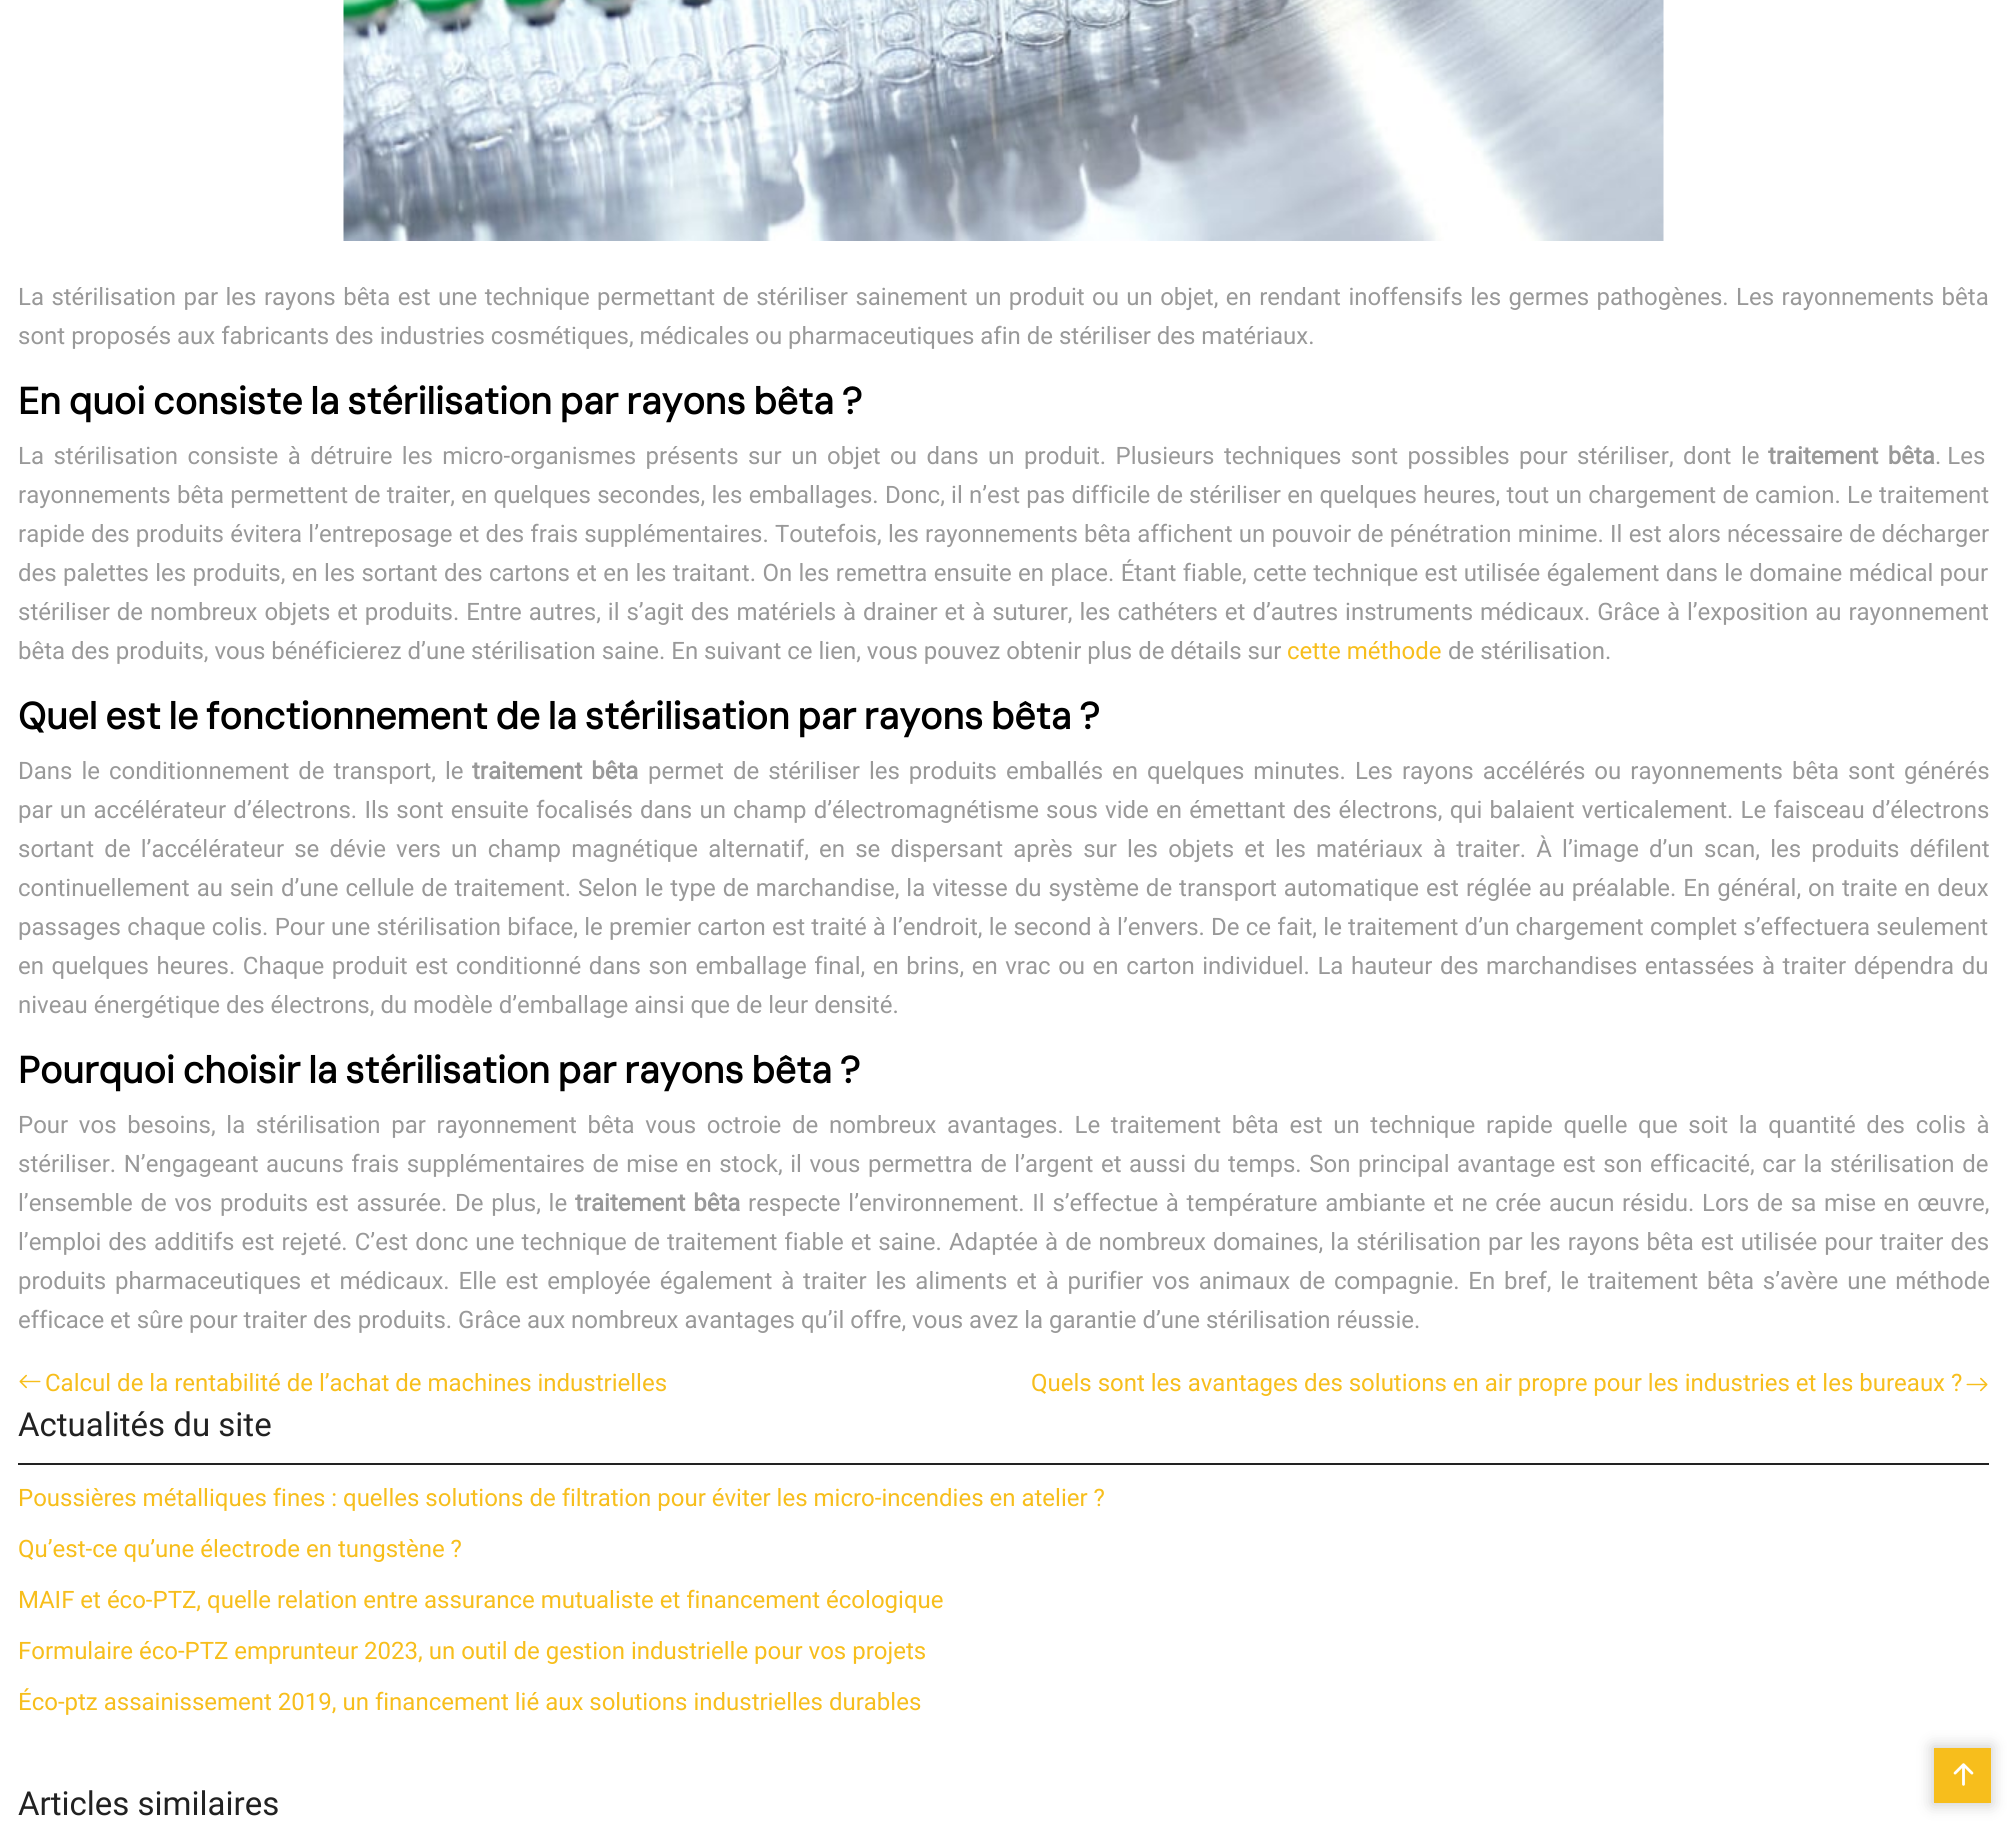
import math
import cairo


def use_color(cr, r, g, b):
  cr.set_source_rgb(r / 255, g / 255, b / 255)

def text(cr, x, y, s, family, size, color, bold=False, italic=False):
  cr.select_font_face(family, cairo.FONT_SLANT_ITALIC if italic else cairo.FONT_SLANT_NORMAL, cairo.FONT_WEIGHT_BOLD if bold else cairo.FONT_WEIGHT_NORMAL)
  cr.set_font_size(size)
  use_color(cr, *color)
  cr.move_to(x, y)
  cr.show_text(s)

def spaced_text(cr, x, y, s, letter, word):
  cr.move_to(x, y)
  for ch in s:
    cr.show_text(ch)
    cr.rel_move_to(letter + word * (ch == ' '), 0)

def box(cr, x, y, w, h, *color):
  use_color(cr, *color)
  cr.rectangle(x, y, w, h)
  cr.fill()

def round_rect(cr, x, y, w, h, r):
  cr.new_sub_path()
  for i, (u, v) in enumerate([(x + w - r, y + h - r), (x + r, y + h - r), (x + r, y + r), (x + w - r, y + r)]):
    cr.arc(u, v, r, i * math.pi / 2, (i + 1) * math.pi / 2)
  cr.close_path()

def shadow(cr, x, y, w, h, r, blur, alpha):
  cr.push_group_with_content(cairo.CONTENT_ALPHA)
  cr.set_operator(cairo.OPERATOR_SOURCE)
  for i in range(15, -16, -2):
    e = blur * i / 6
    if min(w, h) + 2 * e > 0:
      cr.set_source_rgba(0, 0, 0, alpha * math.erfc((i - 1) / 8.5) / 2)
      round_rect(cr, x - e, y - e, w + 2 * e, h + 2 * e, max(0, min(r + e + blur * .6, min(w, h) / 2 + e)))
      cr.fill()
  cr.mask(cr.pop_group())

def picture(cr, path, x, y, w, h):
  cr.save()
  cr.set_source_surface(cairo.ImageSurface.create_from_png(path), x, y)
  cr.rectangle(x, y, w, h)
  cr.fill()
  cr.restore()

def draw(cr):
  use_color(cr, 255, 255, 255)
  cr.paint()
  picture(cr, "img_01.png", 343, 0, 1321, 241)
  picture(cr, "img_02.png", 19, 1374, 22, 15)
  picture(cr, "img_03.png", 1966, 1377, 22, 15)
  box(cr, 18, 1463, 1971, 2, 34, 34, 34)
  use_color(cr, 0, 0, 0)
  shadow(cr, 1932, 1746, 60, 59, 0, 7.5, 0.2)
  box(cr, 1934, 1748, 57, 55, 247, 190, 28)
  picture(cr, "img_04.png", 1953, 1763, 21, 23)
  cr.select_font_face("Roboto")
  cr.set_font_size(24)
  use_color(cr, 153, 153, 153)
  spaced_text(cr, 18, 305, "La stérilisation par les rayons bêta est une technique permettant de stériliser sainement un produit ou un objet, en rendant inoffensifs les germes pathogènes. Les rayonnements bêta", 0, 1.45)
  text(cr, 18, 344, "sont proposés aux fabricants des industries cosmétiques, médicales ou pharmaceutiques afin de stériliser des matériaux.", "Roboto", 24, (153, 153, 153))
  cr.select_font_face("DM Sans", cairo.FONT_SLANT_NORMAL, cairo.FONT_WEIGHT_BOLD)
  cr.set_font_size(37.5)
  use_color(cr, 0, 0, 0)
  spaced_text(cr, 18, 414, "En quoi consiste la stérilisation par rayons bêta ?", 0, -2.25)
  cr.select_font_face("Roboto")
  cr.set_font_size(24)
  use_color(cr, 153, 153, 153)
  spaced_text(cr, 18, 464, "La stérilisation consiste à détruire les micro-organismes présents sur un objet ou dans un produit. Plusieurs techniques sont possibles pour stériliser, dont le", 0, 3.5)
  cr.select_font_face("Roboto", cairo.FONT_SLANT_NORMAL, cairo.FONT_WEIGHT_BOLD)
  spaced_text(cr, 1768, 464, "traitement bêta", 0, 3.5)
  text(cr, 1935, 464, ". Les", "Roboto", 24, (153, 153, 153))
  spaced_text(cr, 18, 503, "rayonnements bêta permettent de traiter, en quelques secondes, les emballages. Donc, il n’est pas difficile de stériliser en quelques heures, tout un chargement de camion. Le traitement", 0, 0.3)
  spaced_text(cr, 18, 542, "rapide des produits évitera l’entreposage et des frais supplémentaires. Toutefois, les rayonnements bêta affichent un pouvoir de pénétration minime. Il est alors nécessaire de décharger", 0, 0.25)
  spaced_text(cr, 18, 581, "des palettes les produits, en les sortant des cartons et en les traitant. On les remettra ensuite en place. Étant fiable, cette technique est utilisée également dans le domaine médical pour", 0, 0.4)
  spaced_text(cr, 18, 620, "stériliser de nombreux objets et produits. Entre autres, il s’agit des matériels à drainer et à suturer, les cathéters et d’autres instruments médicaux. Grâce à l’exposition au rayonnement", 0, 1)
  text(cr, 18, 659, "bêta des produits, vous bénéficierez d’une stérilisation saine. En suivant ce lien, vous pouvez obtenir plus de détails sur", "Roboto", 24, (153, 153, 153))
  text(cr, 1287, 659, "cette méthode", "Roboto", 24, (247, 190, 28))
  text(cr, 1448, 659, "de stérilisation.", "Roboto", 24, (153, 153, 153))
  cr.select_font_face("DM Sans", cairo.FONT_SLANT_NORMAL, cairo.FONT_WEIGHT_BOLD)
  cr.set_font_size(37.5)
  use_color(cr, 0, 0, 0)
  spaced_text(cr, 18, 729, "Quel est le fonctionnement de la stérilisation par rayons bêta ?", 0, -2.25)
  cr.select_font_face("Roboto")
  cr.set_font_size(24)
  use_color(cr, 153, 153, 153)
  spaced_text(cr, 18, 779, "Dans le conditionnement de transport, le", 0, 3)
  cr.select_font_face("Roboto", cairo.FONT_SLANT_NORMAL, cairo.FONT_WEIGHT_BOLD)
  spaced_text(cr, 472, 779, "traitement bêta", 0, 3)
  cr.select_font_face("Roboto")
  spaced_text(cr, 648, 779, "permet de stériliser les produits emballés en quelques minutes. Les rayons accélérés ou rayonnements bêta sont générés", 0, 3)
  spaced_text(cr, 18, 818, "par un accélérateur d’électrons. Ils sont ensuite focalisés dans un champ d’électromagnétisme sous vide en émettant des électrons, qui balaient verticalement. Le faisceau d’électrons", 0, 1.25)
  spaced_text(cr, 18, 857, "sortant de l’accélérateur se dévie vers un champ magnétique alternatif, en se dispersant après sur les objets et les matériaux à traiter. À l’image d’un scan, les produits défilent", 0, 4.2)
  spaced_text(cr, 18, 896, "continuellement au sein d’une cellule de traitement. Selon le type de marchandise, la vitesse du système de transport automatique est réglée au préalable. En général, on traite en deux", 0, 1)
  spaced_text(cr, 18, 935, "passages chaque colis. Pour une stérilisation biface, le premier carton est traité à l’endroit, le second à l’envers. De ce fait, le traitement d’un chargement complet s’effectuera seulement", 0, 0.25)
  spaced_text(cr, 18, 974, "en quelques heures. Chaque produit est conditionné dans son emballage final, en brins, en vrac ou en carton individuel. La hauteur des marchandises entassées à traiter dépendra du", 0, 1.6)
  text(cr, 18, 1013, "niveau énergétique des électrons, du modèle d’emballage ainsi que de leur densité.", "Roboto", 24, (153, 153, 153))
  cr.select_font_face("DM Sans", cairo.FONT_SLANT_NORMAL, cairo.FONT_WEIGHT_BOLD)
  cr.set_font_size(37.5)
  use_color(cr, 0, 0, 0)
  spaced_text(cr, 18, 1083, "Pourquoi choisir la stérilisation par rayons bêta ?", 0, -2.25)
  cr.select_font_face("Roboto")
  cr.set_font_size(24)
  use_color(cr, 153, 153, 153)
  spaced_text(cr, 18, 1133, "Pour vos besoins, la stérilisation par rayonnement bêta vous octroie de nombreux avantages. Le traitement bêta est un technique rapide quelle que soit la quantité des colis à", 0, 4.7)
  spaced_text(cr, 18, 1172, "stériliser. N’engageant aucuns frais supplémentaires de mise en stock, il vous permettra de l’argent et aussi du temps. Son principal avantage est son efficacité, car la stérilisation de", 0, 1.6)
  spaced_text(cr, 18, 1211, "l’ensemble de vos produits est assurée. De plus, le", 0, 1.75)
  cr.select_font_face("Roboto", cairo.FONT_SLANT_NORMAL, cairo.FONT_WEIGHT_BOLD)
  spaced_text(cr, 575, 1211, "traitement bêta", 0, 2)
  cr.select_font_face("Roboto")
  spaced_text(cr, 748, 1211, "respecte l’environnement. Il s’effectue à température ambiante et ne crée aucun résidu. Lors de sa mise en œuvre,", 0, 1.75)
  spaced_text(cr, 18, 1250, "l’emploi des additifs est rejeté. C’est donc une technique de traitement fiable et saine. Adaptée à de nombreux domaines, la stérilisation par les rayons bêta est utilisée pour traiter des", 0, 1.1)
  spaced_text(cr, 18, 1289, "produits pharmaceutiques et médicaux. Elle est employée également à traiter les aliments et à purifier vos animaux de compagnie. En bref, le traitement bêta s’avère une méthode", 0, 2.9)
  text(cr, 18, 1328, "efficace et sûre pour traiter des produits. Grâce aux nombreux avantages qu’il offre, vous avez la garantie d’une stérilisation réussie.", "Roboto", 24, (153, 153, 153))
  text(cr, 45, 1391, "Calcul de la rentabilité de l’achat de machines industrielles", "Roboto", 24, (247, 190, 28))
  text(cr, 1031, 1391, "Quels sont les avantages des solutions en air propre pour les industries et les bureaux ?", "Roboto", 24, (247, 190, 28))
  text(cr, 18, 1436, "Actualités du site", "Roboto", 33, (34, 34, 34))
  text(cr, 18, 1506, "Poussières métalliques fines : quelles solutions de filtration pour éviter les micro-incendies en atelier ?", "Roboto", 24, (247, 190, 28))
  text(cr, 18, 1557, "Qu’est-ce qu’une électrode en tungstène ?", "Roboto", 24, (247, 190, 28))
  text(cr, 18, 1608, "MAIF et éco-PTZ, quelle relation entre assurance mutualiste et financement écologique", "Roboto", 24, (247, 190, 28))
  text(cr, 18, 1659, "Formulaire éco-PTZ emprunteur 2023, un outil de gestion industrielle pour vos projets", "Roboto", 24, (247, 190, 28))
  text(cr, 18, 1710, "Éco-ptz assainissement 2019, un financement lié aux solutions industrielles durables", "Roboto", 24, (247, 190, 28))
  text(cr, 18, 1815, "Articles similaires", "Roboto", 33, (34, 34, 34))


surface = cairo.ImageSurface(cairo.FORMAT_RGB24, 2007, 1834)
cr = cairo.Context(surface)
options = cairo.FontOptions()
options.set_hint_metrics(cairo.HINT_METRICS_OFF)
options.set_hint_style(cairo.HINT_STYLE_NONE)
cr.set_font_options(options)
cr.set_miter_limit(4)
draw(cr)
surface.write_to_png("out.png")
